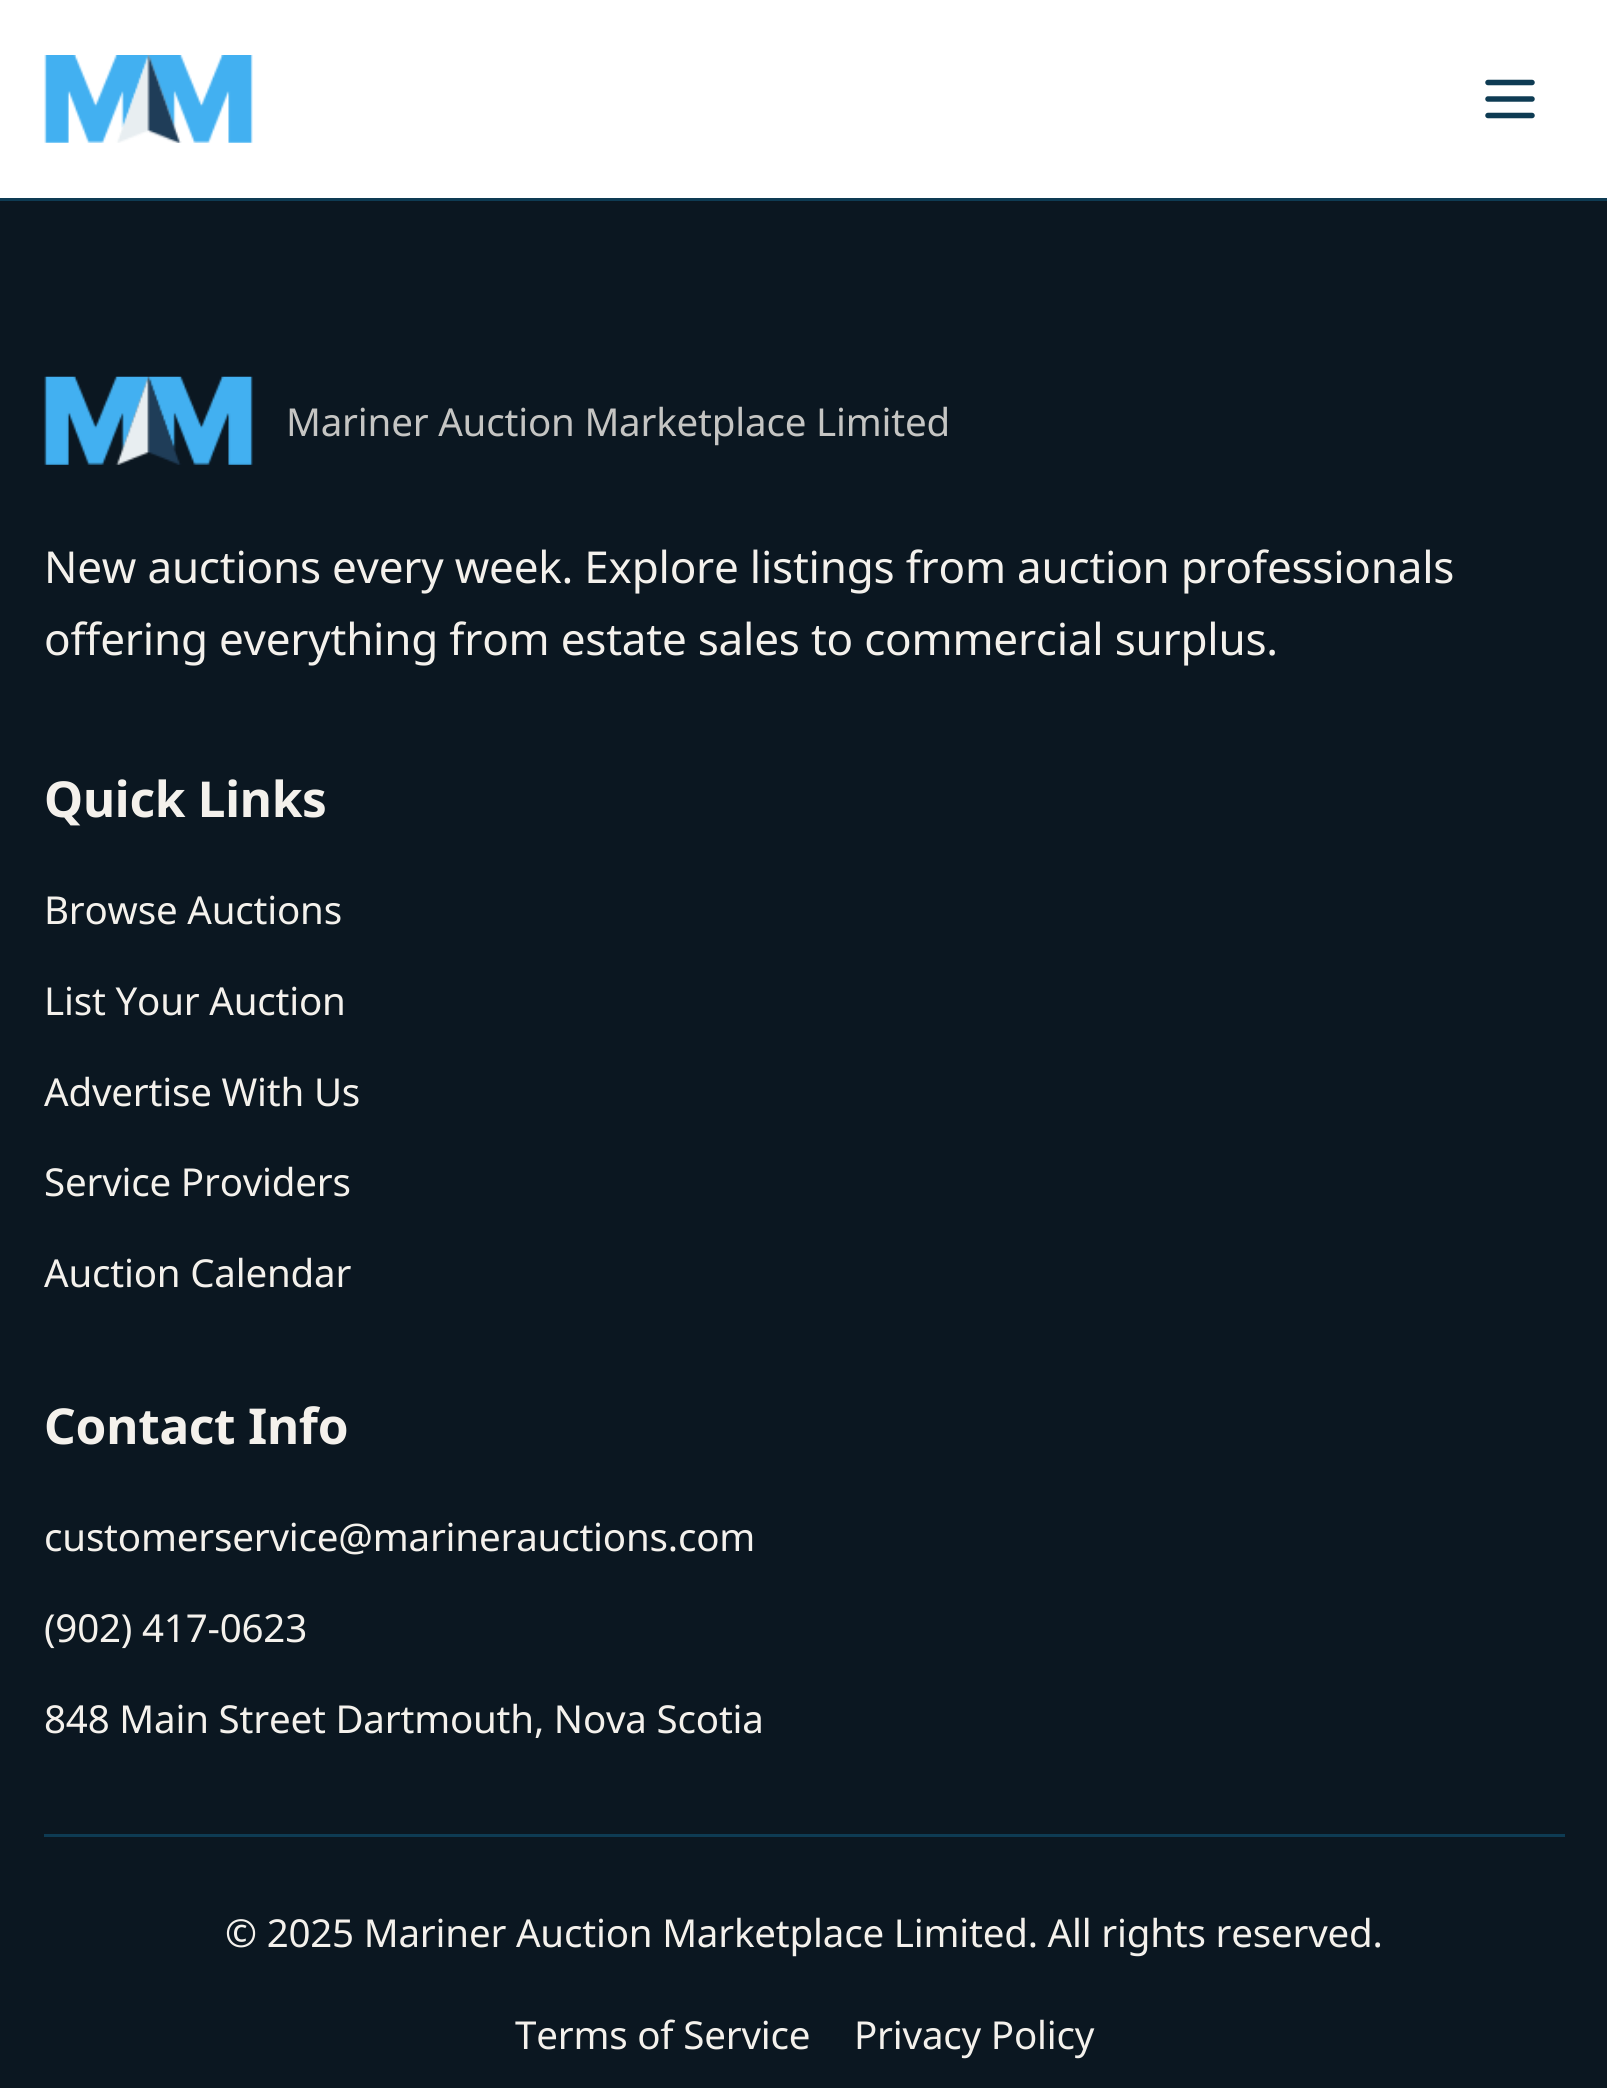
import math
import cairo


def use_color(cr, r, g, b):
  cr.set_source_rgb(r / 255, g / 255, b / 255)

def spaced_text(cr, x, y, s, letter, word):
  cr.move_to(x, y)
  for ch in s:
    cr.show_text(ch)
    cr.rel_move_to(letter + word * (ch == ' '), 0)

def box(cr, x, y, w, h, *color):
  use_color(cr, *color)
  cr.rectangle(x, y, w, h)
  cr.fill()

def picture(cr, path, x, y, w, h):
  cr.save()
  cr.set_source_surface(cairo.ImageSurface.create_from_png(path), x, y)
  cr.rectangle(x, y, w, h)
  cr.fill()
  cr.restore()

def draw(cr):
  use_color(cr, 255, 255, 255)
  cr.paint()
  box(cr, 0, 198, 1607, 3, 14, 59, 83)
  picture(cr, "img_01.png", 44, 55, 209, 88)
  cr.new_path()
  cr.move_to(1488, 99)
  cr.line_to(1532, 99)
  cr.move_to(1488, 115.5)
  cr.line_to(1532, 115.5)
  cr.move_to(1488, 82.5)
  cr.line_to(1532, 82.5)
  cr.set_line_width(5.5)
  cr.set_line_cap(cairo.LINE_CAP_ROUND)
  cr.set_line_join(cairo.LINE_JOIN_ROUND)
  cr.stroke()
  box(cr, 0, 201, 1607, 1887, 11, 23, 33)
  picture(cr, "img_02.png", 44, 376, 209, 89)
  box(cr, 44, 1834, 1521, 3, 14, 59, 83)
  cr.select_font_face("Noto Sans")
  cr.set_font_size(38.5)
  use_color(cr, 197, 197, 195)
  spaced_text(cr, 286, 436, "Mariner Auction Marketplace Limited", -0.2, 0)
  cr.set_font_size(44)
  use_color(cr, 244, 241, 236)
  spaced_text(cr, 44, 583, "New auctions every week. Explore listings from auction professionals", -0.22, 0)
  spaced_text(cr, 44, 655, "offering everything from estate sales to commercial surplus.", -0.22, 0)
  cr.select_font_face("Noto Sans", cairo.FONT_SLANT_NORMAL, cairo.FONT_WEIGHT_BOLD)
  cr.set_font_size(49.5)
  spaced_text(cr, 44, 817, "Quick Links", -0.25, 0)
  cr.select_font_face("Noto Sans")
  cr.set_font_size(38.5)
  spaced_text(cr, 44, 924, "Browse Auctions", -0.2, 0)
  spaced_text(cr, 44, 1015, "List Your Auction", -0.2, 0)
  spaced_text(cr, 44, 1106, "Advertise With Us", -0.2, 0)
  spaced_text(cr, 44, 1196, "Service Providers", -0.2, 0)
  spaced_text(cr, 44, 1287, "Auction Calendar", -0.2, 0)
  cr.select_font_face("Noto Sans", cairo.FONT_SLANT_NORMAL, cairo.FONT_WEIGHT_BOLD)
  cr.set_font_size(49.5)
  spaced_text(cr, 44, 1444, "Contact Info", -0.25, 0)
  cr.select_font_face("Noto Sans")
  cr.set_font_size(38.5)
  spaced_text(cr, 44, 1551, "customerservice@marinerauctions.com", -0.2, 0)
  spaced_text(cr, 44, 1642, "(902) 417-0623", -0.2, 0)
  spaced_text(cr, 44, 1733, "848 Main Street Dartmouth, Nova Scotia", -0.2, 0)
  spaced_text(cr, 225, 1947, "© 2025 Mariner Auction Marketplace Limited. All rights reserved.", -0.2, 0)
  spaced_text(cr, 515, 2049, "Terms of Service", -0.2, 0)
  spaced_text(cr, 854, 2049, "Privacy Policy", -0.2, 0)


surface = cairo.ImageSurface(cairo.FORMAT_RGB24, 1607, 2088)
cr = cairo.Context(surface)
options = cairo.FontOptions()
options.set_hint_metrics(cairo.HINT_METRICS_OFF)
options.set_hint_style(cairo.HINT_STYLE_NONE)
cr.set_font_options(options)
cr.set_miter_limit(4)
draw(cr)
surface.write_to_png("out.png")
